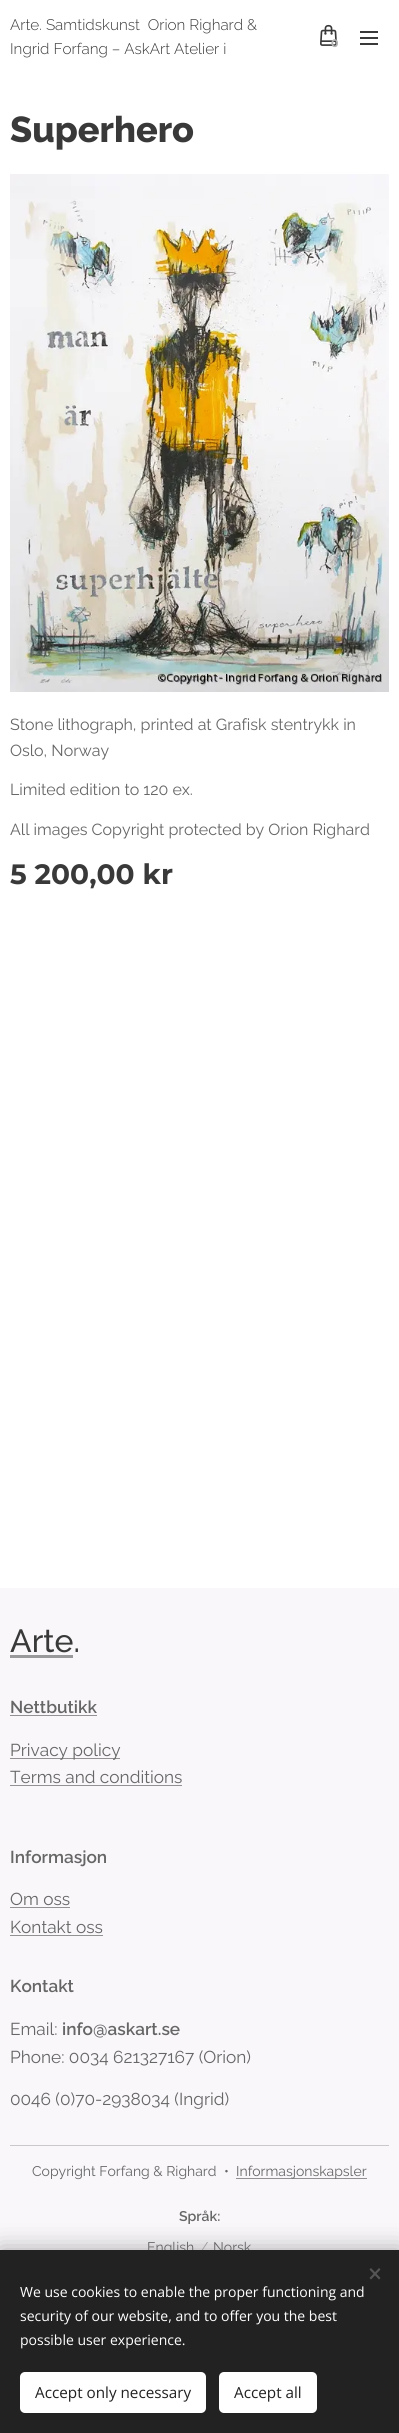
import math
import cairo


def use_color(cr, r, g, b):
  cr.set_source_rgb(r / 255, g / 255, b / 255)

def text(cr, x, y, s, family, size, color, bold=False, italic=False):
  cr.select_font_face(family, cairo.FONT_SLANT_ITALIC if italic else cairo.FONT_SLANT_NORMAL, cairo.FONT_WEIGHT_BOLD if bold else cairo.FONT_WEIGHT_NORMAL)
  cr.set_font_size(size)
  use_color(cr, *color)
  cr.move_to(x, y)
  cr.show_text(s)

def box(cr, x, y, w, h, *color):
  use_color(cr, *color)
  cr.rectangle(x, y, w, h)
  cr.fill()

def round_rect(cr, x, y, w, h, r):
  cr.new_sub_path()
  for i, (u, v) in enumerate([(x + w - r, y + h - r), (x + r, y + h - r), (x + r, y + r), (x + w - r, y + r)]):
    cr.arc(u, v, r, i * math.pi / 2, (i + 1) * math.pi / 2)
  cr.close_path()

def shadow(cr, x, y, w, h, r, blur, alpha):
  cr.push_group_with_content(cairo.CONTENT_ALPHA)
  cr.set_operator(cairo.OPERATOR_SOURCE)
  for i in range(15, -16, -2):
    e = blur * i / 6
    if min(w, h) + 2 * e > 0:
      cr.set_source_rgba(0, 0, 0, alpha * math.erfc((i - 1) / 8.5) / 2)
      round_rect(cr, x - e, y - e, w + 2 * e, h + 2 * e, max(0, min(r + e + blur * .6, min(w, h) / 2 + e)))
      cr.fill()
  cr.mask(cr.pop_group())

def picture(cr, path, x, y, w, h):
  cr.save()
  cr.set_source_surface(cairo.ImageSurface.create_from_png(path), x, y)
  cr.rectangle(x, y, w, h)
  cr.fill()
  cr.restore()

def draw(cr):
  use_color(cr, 255, 255, 255)
  cr.paint()
  picture(cr, "img_01.png", 320, 24, 17, 22)
  box(cr, 360, 37, 18, 2, 57, 57, 57)
  box(cr, 360, 31, 18, 2, 57, 57, 57)
  box(cr, 360, 43, 18, 2, 57, 57, 57)
  picture(cr, "img_02.png", 10, 174, 379, 518)
  box(cr, 0, 1588, 399, 662, 249, 247, 250)
  box(cr, 10, 1655, 63, 3, 153, 152, 154)
  box(cr, 10, 1715, 87, 1, 146, 146, 146)
  box(cr, 10, 1758, 110, 1, 146, 146, 146)
  box(cr, 10, 1785, 172, 1, 146, 146, 146)
  box(cr, 10, 1907, 60, 1, 146, 146, 146)
  box(cr, 10, 1935, 93, 1, 146, 146, 146)
  box(cr, 10, 2145, 379, 1, 201, 201, 201)
  box(cr, 236, 2178, 131, 1, 146, 146, 146)
  use_color(cr, 0, 0, 0)
  shadow(cr, 0, 2250, 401, 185, 0, 12.5, 0.33)
  text(cr, 10, 30, "Arte. Samtidskunst  Orion Righard &", "Raleway Light", 15.25, (57, 57, 57))
  text(cr, 10, 54, "Ingrid Forfang – AskArt Atelier i", "Raleway Light", 15.25, (57, 57, 57))
  text(cr, 331, 47, "0", "Montserrat", 11, (179, 179, 179), bold=True)
  text(cr, 10, 142, "Superhero", "Raleway ExtraBold", 36, (57, 57, 57))
  text(cr, 10, 730, "Stone lithograph, printed at Grafisk stentrykk in", "Raleway", 16, (102, 102, 102))
  text(cr, 10, 756, "Oslo, Norway", "Raleway", 16, (102, 102, 102))
  text(cr, 10, 795, "Limited edition to 120 ex.", "Raleway", 16, (102, 102, 102))
  text(cr, 10, 835, "All images Copyright protected by Orion Righard", "Raleway", 16, (102, 102, 102))
  text(cr, 10, 884, "5 200,00 kr", "Montserrat", 28, (57, 57, 57), bold=True)
  text(cr, 10, 1652, "Arte.", "Raleway Medium", 32, (57, 57, 57))
  text(cr, 10, 1713, "Nettbutikk", "Raleway SemiBold", 17.25, (102, 102, 102))
  text(cr, 10, 1756, "Privacy policy", "Raleway", 17.25, (102, 102, 102))
  text(cr, 10, 1783, "Terms and conditions", "Raleway", 17.25, (102, 102, 102))
  text(cr, 10, 1863, "Informasjon", "Raleway SemiBold", 17.25, (102, 102, 102))
  text(cr, 10, 1905, "Om oss", "Raleway", 17.25, (102, 102, 102))
  text(cr, 10, 1933, "Kontakt oss", "Raleway", 17.25, (102, 102, 102))
  text(cr, 10, 1992, "Kontakt", "Raleway SemiBold", 17.25, (102, 102, 102))
  text(cr, 10, 2035, "Email:", "Raleway", 17.25, (102, 102, 102))
  text(cr, 62, 2035, "info@askart.se", "Raleway SemiBold", 17.25, (102, 102, 102))
  text(cr, 10, 2063, "Phone: 0034 621327167 (Orion)", "Raleway", 17.25, (102, 102, 102))
  text(cr, 10, 2105, "0046 (0)70-2938034 (Ingrid)", "Raleway", 17.25, (102, 102, 102))
  text(cr, 32, 2176, "Copyright Forfang & Righard", "Raleway", 14, (102, 102, 102))
  text(cr, 224, 2176, "•", "Raleway", 14, (102, 102, 102))
  text(cr, 236, 2176, "Informasjonskapsler", "Raleway", 14, (102, 102, 102))
  text(cr, 179, 2221, "Språk:", "Raleway SemiBold", 14, (102, 102, 102))
  text(cr, 147, 2252, "English", "Raleway", 14, (102, 102, 102))
  text(cr, 200, 2252, "/", "Raleway", 14, (157, 157, 157))
  text(cr, 213, 2252, "Norsk", "Raleway", 14, (102, 102, 102))
  box(cr, 0, 2250, 399, 183, 34, 34, 34)
  use_color(cr, 85, 85, 85)
  cr.new_path()
  cr.move_to(369.5, 2278)
  cr.line_to(379, 2268)
  cr.line_to(380.5, 2269.5)
  cr.line_to(371, 2279.5)
  cr.close_path()
  cr.fill()
  cr.new_path()
  cr.move_to(371, 2268)
  cr.line_to(380.5, 2278)
  cr.line_to(379, 2279.5)
  cr.line_to(369.5, 2269.5)
  cr.close_path()
  cr.fill()
  text(cr, 20, 2297, "We use cookies to enable the proper functioning and", "Open Sans", 14, (255, 255, 255))
  text(cr, 20, 2321, "security of our website, and to offer you the best", "Open Sans", 14, (255, 255, 255))
  text(cr, 20, 2345, "possible user experience.", "Open Sans", 14, (255, 255, 255))
  round_rect(cr, 20, 2372, 186, 41, 5)
  cr.fill()
  text(cr, 35, 2398, "Accept only necessary", "Open Sans", 15.25, (34, 34, 34))
  use_color(cr, 255, 255, 255)
  round_rect(cr, 219, 2372, 98, 41, 5)
  cr.fill()
  text(cr, 234, 2398, "Accept all", "Open Sans", 15.25, (34, 34, 34))


surface = cairo.ImageSurface(cairo.FORMAT_RGB24, 399, 2433)
cr = cairo.Context(surface)
options = cairo.FontOptions()
options.set_hint_metrics(cairo.HINT_METRICS_OFF)
options.set_hint_style(cairo.HINT_STYLE_NONE)
cr.set_font_options(options)
cr.set_miter_limit(4)
draw(cr)
surface.write_to_png("out.png")
